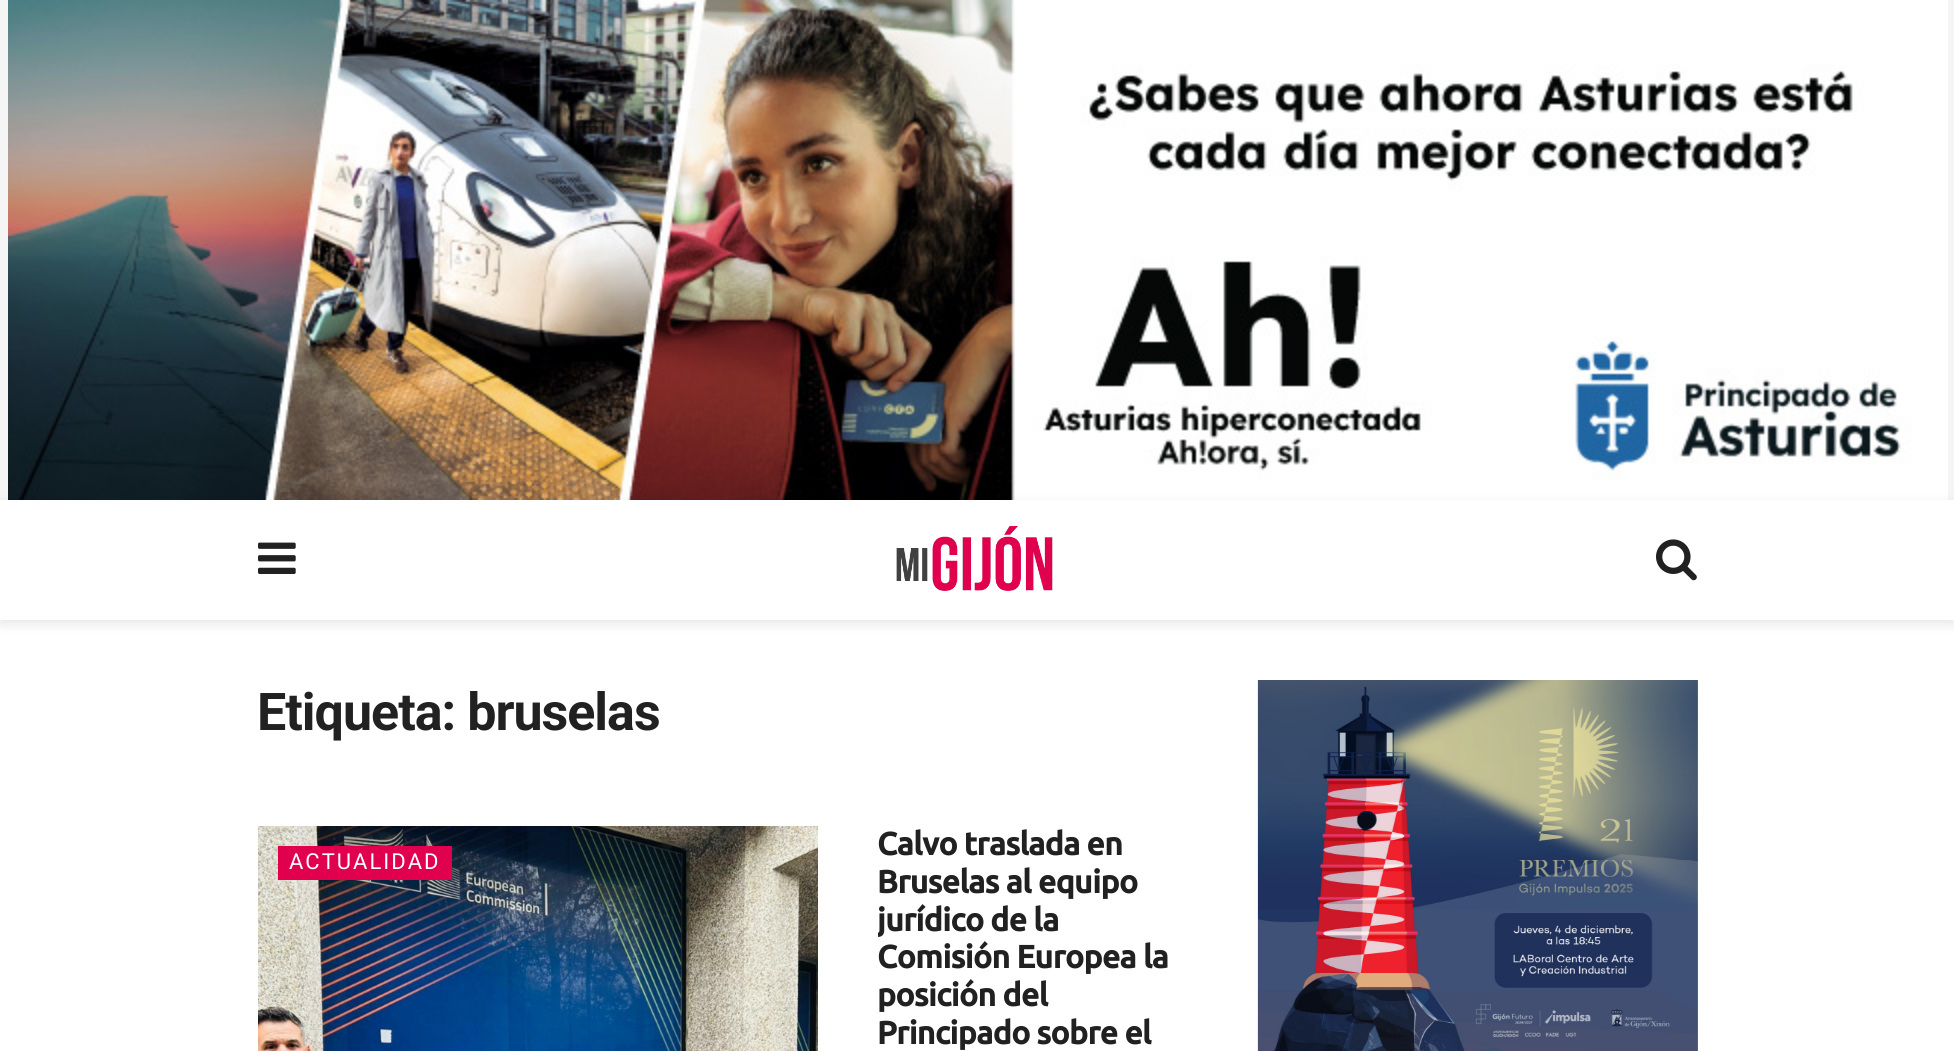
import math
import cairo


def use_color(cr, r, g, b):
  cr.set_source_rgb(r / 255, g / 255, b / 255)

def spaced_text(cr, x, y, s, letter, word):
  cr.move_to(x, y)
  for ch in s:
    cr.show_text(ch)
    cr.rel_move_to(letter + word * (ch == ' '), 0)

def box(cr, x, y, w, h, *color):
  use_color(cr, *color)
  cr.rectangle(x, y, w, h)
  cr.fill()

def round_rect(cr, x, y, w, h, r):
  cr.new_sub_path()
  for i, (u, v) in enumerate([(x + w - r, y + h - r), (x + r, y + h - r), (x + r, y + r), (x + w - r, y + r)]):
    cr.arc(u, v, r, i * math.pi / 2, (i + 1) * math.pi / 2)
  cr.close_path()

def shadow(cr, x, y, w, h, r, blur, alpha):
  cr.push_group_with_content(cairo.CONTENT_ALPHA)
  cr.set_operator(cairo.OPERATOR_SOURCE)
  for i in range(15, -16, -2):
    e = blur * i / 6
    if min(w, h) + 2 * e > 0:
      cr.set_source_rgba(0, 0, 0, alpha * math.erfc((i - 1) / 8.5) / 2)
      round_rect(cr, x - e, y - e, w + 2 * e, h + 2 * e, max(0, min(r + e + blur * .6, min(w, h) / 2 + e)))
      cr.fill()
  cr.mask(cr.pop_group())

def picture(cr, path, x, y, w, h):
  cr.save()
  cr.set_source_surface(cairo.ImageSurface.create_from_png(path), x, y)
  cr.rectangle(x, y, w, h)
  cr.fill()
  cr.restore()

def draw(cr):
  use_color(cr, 255, 255, 255)
  cr.paint()
  box(cr, 0, 0, 1954, 500, 245, 245, 245)
  picture(cr, "img_01.png", 8, 0, 1940, 500)
  cr.save()
  cr.set_fill_rule(cairo.FILL_RULE_EVEN_ODD)
  cr.new_path()
  cr.move_to(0, 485)
  cr.line_to(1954, 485)
  cr.line_to(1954, 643)
  cr.line_to(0, 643)
  cr.close_path()
  cr.move_to(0, 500)
  cr.line_to(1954, 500)
  cr.line_to(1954, 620)
  cr.line_to(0, 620)
  cr.close_path()
  cr.clip()
  use_color(cr, 0, 0, 0)
  shadow(cr, 0, 504, 1954, 120, 0, 6, 0.1)
  cr.restore()
  picture(cr, "img_02.png", 258, 542, 38, 32)
  picture(cr, "img_03.png", 896, 526, 157, 65)
  picture(cr, "img_04.png", 1656, 539, 41, 42)
  picture(cr, "img_05.png", 258, 826, 560, 225)
  box(cr, 278, 846, 174, 34, 224, 0, 77)
  picture(cr, "img_06.png", 1257, 680, 441, 371)
  cr.select_font_face("Roboto", cairo.FONT_SLANT_NORMAL, cairo.FONT_WEIGHT_BOLD)
  cr.set_font_size(52)
  use_color(cr, 33, 33, 33)
  spaced_text(cr, 257, 730, "Etiqueta: bruselas", -1, 0)
  cr.select_font_face("Roboto")
  cr.set_font_size(22)
  use_color(cr, 255, 255, 255)
  spaced_text(cr, 289, 869, "ACTUALIDAD", 2, 0)
  cr.select_font_face("Ubuntu", cairo.FONT_SLANT_NORMAL, cairo.FONT_WEIGHT_BOLD)
  cr.set_font_size(32)
  use_color(cr, 33, 33, 33)
  spaced_text(cr, 877, 855, "Calvo traslada en", -0.6, 0)
  spaced_text(cr, 877, 893, "Bruselas al equipo", -0.6, 0)
  cr.save()
  cr.rectangle(878, 826, 320, 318)
  cr.clip()
  spaced_text(cr, 877, 931, "jurídico de la", -0.6, 0)
  cr.restore()
  spaced_text(cr, 877, 968, "Comisión Europea la", -0.6, 0)
  spaced_text(cr, 877, 1006, "posición del", -0.6, 0)
  spaced_text(cr, 877, 1044, "Principado sobre el", -0.6, 0)


surface = cairo.ImageSurface(cairo.FORMAT_RGB24, 1954, 1051)
cr = cairo.Context(surface)
options = cairo.FontOptions()
options.set_hint_metrics(cairo.HINT_METRICS_OFF)
options.set_hint_style(cairo.HINT_STYLE_NONE)
cr.set_font_options(options)
cr.set_miter_limit(4)
draw(cr)
surface.write_to_png("out.png")
